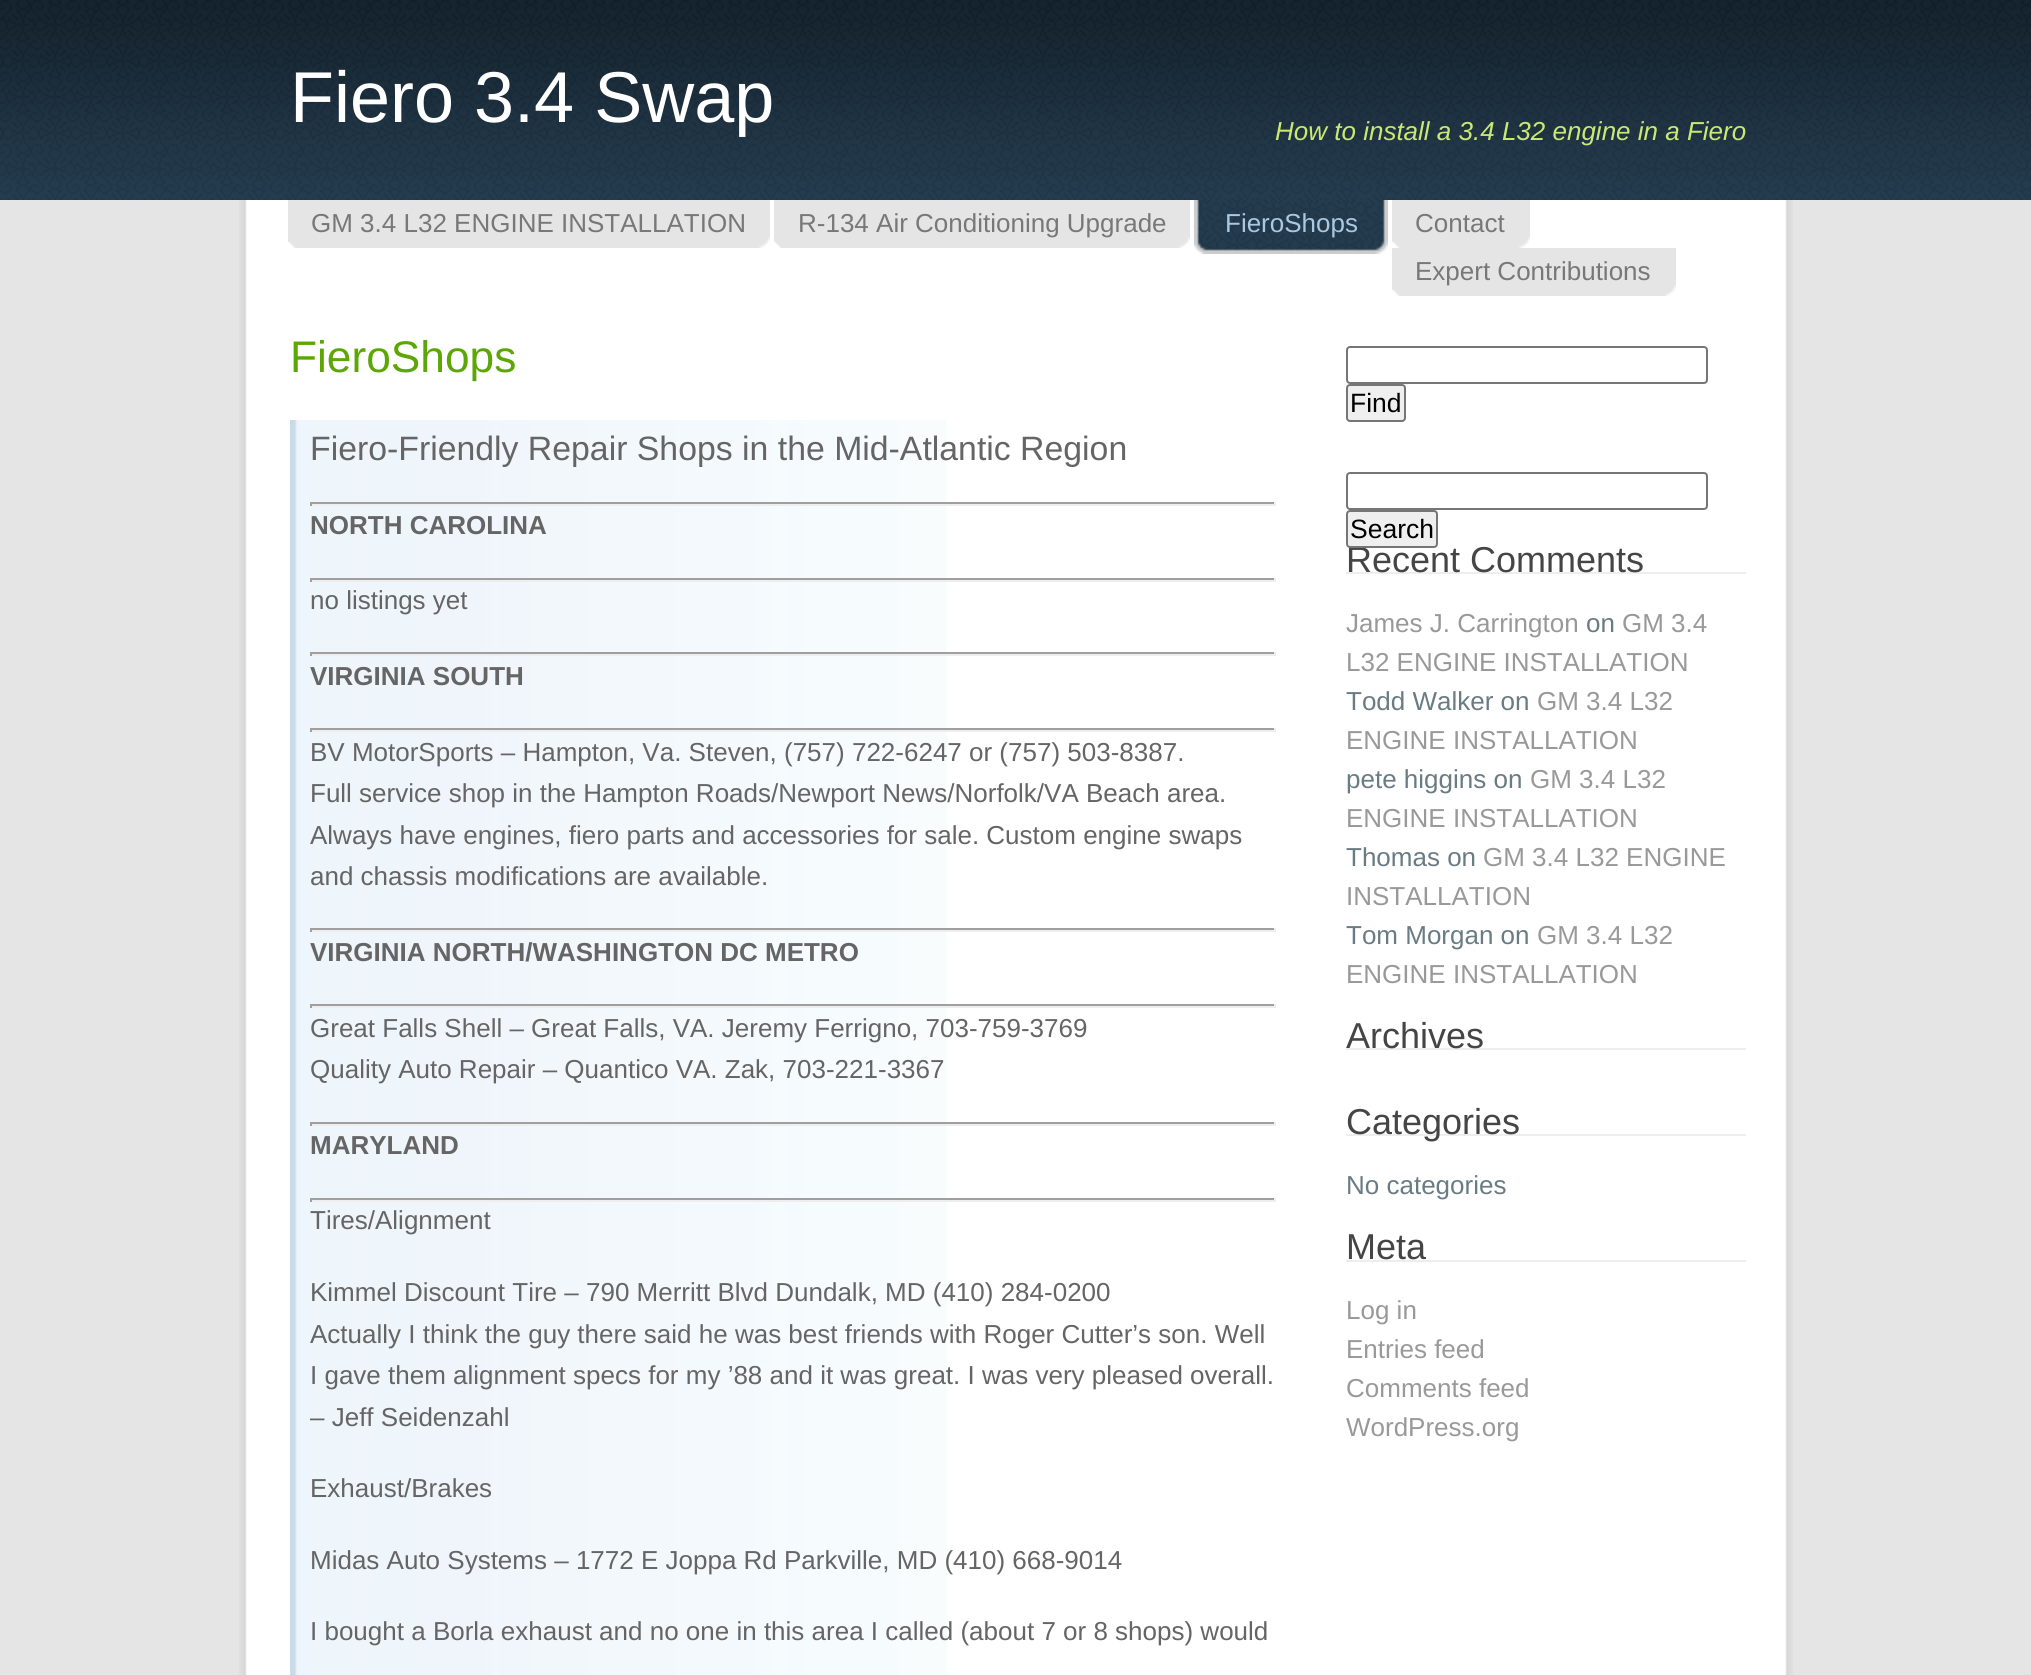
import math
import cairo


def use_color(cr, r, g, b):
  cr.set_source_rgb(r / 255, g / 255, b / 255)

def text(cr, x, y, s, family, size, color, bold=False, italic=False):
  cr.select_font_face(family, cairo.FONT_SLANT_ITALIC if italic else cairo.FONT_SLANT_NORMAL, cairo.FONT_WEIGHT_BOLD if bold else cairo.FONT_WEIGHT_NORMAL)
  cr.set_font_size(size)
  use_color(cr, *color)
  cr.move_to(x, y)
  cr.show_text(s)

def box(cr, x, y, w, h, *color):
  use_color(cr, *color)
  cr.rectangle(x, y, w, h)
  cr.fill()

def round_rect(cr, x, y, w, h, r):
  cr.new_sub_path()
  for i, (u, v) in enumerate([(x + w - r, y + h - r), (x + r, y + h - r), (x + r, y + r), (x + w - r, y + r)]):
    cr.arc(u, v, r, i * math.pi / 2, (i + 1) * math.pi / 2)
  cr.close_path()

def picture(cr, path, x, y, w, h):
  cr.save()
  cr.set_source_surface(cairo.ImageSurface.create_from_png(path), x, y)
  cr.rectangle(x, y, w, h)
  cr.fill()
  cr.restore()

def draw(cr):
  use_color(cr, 229, 229, 229)
  cr.paint()
  picture(cr, "img_01.png", 239, 200, 1554, 1475)
  picture(cr, "img_02.png", 0, 0, 2031, 200)
  picture(cr, "img_03.png", 288, 200, 482, 48)
  picture(cr, "img_04.png", 759, 237, 11, 11)
  picture(cr, "img_05.png", 774, 200, 416, 48)
  picture(cr, "img_04.png", 1179, 237, 11, 11)
  picture(cr, "img_06.png", 1194, 200, 174, 54)
  picture(cr, "img_07.png", 1368, 200, 20, 54)
  picture(cr, "img_08.png", 1392, 200, 138, 48)
  picture(cr, "img_04.png", 1519, 237, 11, 11)
  picture(cr, "img_09.png", 1392, 248, 284, 48)
  picture(cr, "img_04.png", 1665, 285, 11, 11)
  picture(cr, "img_10.png", 290, 420, 657, 1255)
  box(cr, 310, 502, 966, 2, 159, 159, 159)
  box(cr, 1274, 502, 2, 4, 238, 238, 238)
  box(cr, 310, 504, 966, 2, 238, 238, 238)
  box(cr, 310, 502, 2, 4, 159, 159, 159)
  box(cr, 310, 578, 966, 2, 159, 159, 159)
  box(cr, 1274, 578, 2, 4, 238, 238, 238)
  box(cr, 310, 580, 966, 2, 238, 238, 238)
  box(cr, 310, 578, 2, 4, 159, 159, 159)
  box(cr, 310, 652, 966, 2, 159, 159, 159)
  box(cr, 1274, 652, 2, 4, 238, 238, 238)
  box(cr, 310, 654, 966, 2, 238, 238, 238)
  box(cr, 310, 652, 2, 4, 159, 159, 159)
  box(cr, 310, 728, 966, 2, 159, 159, 159)
  box(cr, 1274, 728, 2, 4, 238, 238, 238)
  box(cr, 310, 730, 966, 2, 238, 238, 238)
  box(cr, 310, 728, 2, 4, 159, 159, 159)
  box(cr, 310, 928, 966, 2, 159, 159, 159)
  box(cr, 1274, 928, 2, 4, 238, 238, 238)
  box(cr, 310, 930, 966, 2, 238, 238, 238)
  box(cr, 310, 928, 2, 4, 159, 159, 159)
  box(cr, 310, 1004, 966, 2, 159, 159, 159)
  box(cr, 1274, 1004, 2, 4, 238, 238, 238)
  box(cr, 310, 1006, 966, 2, 238, 238, 238)
  box(cr, 310, 1004, 2, 4, 159, 159, 159)
  box(cr, 310, 1122, 966, 2, 159, 159, 159)
  box(cr, 1274, 1122, 2, 4, 238, 238, 238)
  box(cr, 310, 1124, 966, 2, 238, 238, 238)
  box(cr, 310, 1122, 2, 4, 159, 159, 159)
  box(cr, 310, 1198, 966, 2, 159, 159, 159)
  box(cr, 1274, 1198, 2, 4, 238, 238, 238)
  box(cr, 310, 1200, 966, 2, 238, 238, 238)
  box(cr, 310, 1198, 2, 4, 159, 159, 159)
  round_rect(cr, 1347, 347, 360, 36, 3)
  use_color(cr, 118, 118, 118)
  cr.stroke()
  use_color(cr, 239, 239, 239)
  round_rect(cr, 1347, 385, 58, 36, 3)
  cr.fill_preserve()
  use_color(cr, 118, 118, 118)
  cr.stroke()
  round_rect(cr, 1347, 473, 360, 36, 3)
  cr.stroke()
  box(cr, 1346, 572, 400, 2, 238, 238, 238)
  box(cr, 1346, 1048, 400, 2, 238, 238, 238)
  box(cr, 1346, 1134, 400, 2, 238, 238, 238)
  box(cr, 1346, 1260, 400, 2, 238, 238, 238)
  text(cr, 290, 122, "Fiero 3.4 Swap", "Liberation Sans", 72, (255, 255, 255))
  text(cr, 1275, 140, "How to install a 3.4 L32 engine in a Fiero", "Liberation Sans", 26, (202, 233, 114), italic=True)
  text(cr, 311, 232, "GM 3.4 L32 ENGINE INSTALLATION", "Liberation Sans", 26, (120, 120, 120))
  text(cr, 798, 232, "R-134 Air Conditioning Upgrade", "Liberation Sans", 26, (120, 120, 120))
  text(cr, 1225, 232, "FieroShops", "Liberation Sans", 26, (170, 200, 224))
  text(cr, 1415, 232, "Contact", "Liberation Sans", 26, (120, 120, 120))
  text(cr, 1415, 280, "Expert Contributions", "Liberation Sans", 26, (120, 120, 120))
  text(cr, 290, 372, "FieroShops", "Liberation Sans", 44.25, (92, 166, 5))
  text(cr, 310, 460, "Fiero-Friendly Repair Shops in the Mid-Atlantic Region", "Liberation Sans", 33.8, (101, 101, 101))
  text(cr, 310, 534, "NORTH CAROLINA", "Liberation Sans", 26, (101, 101, 101), bold=True)
  text(cr, 310, 609, "no listings yet", "Liberation Sans", 26, (101, 101, 101))
  text(cr, 310, 685, "VIRGINIA SOUTH", "Liberation Sans", 26, (101, 101, 101), bold=True)
  text(cr, 310, 761, "BV MotorSports – Hampton, Va. Steven, (757) 722-6247 or (757) 503-8387.", "Liberation Sans", 26, (101, 101, 101))
  text(cr, 310, 802, "Full service shop in the Hampton Roads/Newport News/Norfolk/VA Beach area.", "Liberation Sans", 26, (101, 101, 101))
  text(cr, 310, 844, "Always have engines, fiero parts and accessories for sale. Custom engine swaps", "Liberation Sans", 26, (101, 101, 101))
  text(cr, 310, 885, "and chassis modifications are available.", "Liberation Sans", 26, (101, 101, 101))
  text(cr, 310, 961, "VIRGINIA NORTH/WASHINGTON DC METRO", "Liberation Sans", 26, (101, 101, 101), bold=True)
  text(cr, 310, 1037, "Great Falls Shell – Great Falls, VA. Jeremy Ferrigno, 703-759-3769", "Liberation Sans", 26, (101, 101, 101))
  text(cr, 310, 1078, "Quality Auto Repair – Quantico VA. Zak, 703-221-3367", "Liberation Sans", 26, (101, 101, 101))
  text(cr, 310, 1154, "MARYLAND", "Liberation Sans", 26, (101, 101, 101), bold=True)
  text(cr, 310, 1229, "Tires/Alignment", "Liberation Sans", 26, (101, 101, 101))
  text(cr, 310, 1301, "Kimmel Discount Tire – 790 Merritt Blvd Dundalk, MD (410) 284-0200", "Liberation Sans", 26, (101, 101, 101))
  text(cr, 310, 1343, "Actually I think the guy there said he was best friends with Roger Cutter’s son. Well", "Liberation Sans", 26, (101, 101, 101))
  text(cr, 310, 1384, "I gave them alignment specs for my ’88 and it was great. I was very pleased overall.", "Liberation Sans", 26, (101, 101, 101))
  text(cr, 310, 1426, "– Jeff Seidenzahl", "Liberation Sans", 26, (101, 101, 101))
  text(cr, 310, 1497, "Exhaust/Brakes", "Liberation Sans", 26, (101, 101, 101))
  text(cr, 310, 1569, "Midas Auto Systems – 1772 E Joppa Rd Parkville, MD (410) 668-9014", "Liberation Sans", 26, (101, 101, 101))
  text(cr, 310, 1640, "I bought a Borla exhaust and no one in this area I called (about 7 or 8 shops) would", "Liberation Sans", 26, (101, 101, 101))
  text(cr, 1350, 412, "Find", "Liberation Sans", 26.5, (0, 0, 0))
  text(cr, 1346, 572, "Recent Comments", "Liberation Sans", 36, (69, 69, 69))
  use_color(cr, 239, 239, 239)
  round_rect(cr, 1347, 511, 90, 36, 3)
  cr.fill_preserve()
  use_color(cr, 118, 118, 118)
  cr.stroke()
  text(cr, 1350, 538, "Search", "Liberation Sans", 26.5, (0, 0, 0))
  text(cr, 1346, 632, "James J. Carrington", "Liberation Sans", 26, (153, 153, 153))
  text(cr, 1586, 632, "on", "Liberation Sans", 26, (105, 124, 131))
  text(cr, 1622, 632, "GM 3.4", "Liberation Sans", 26, (153, 153, 153))
  text(cr, 1346, 671, "L32 ENGINE INSTALLATION", "Liberation Sans", 26, (153, 153, 153))
  text(cr, 1346, 710, "Todd Walker on", "Liberation Sans", 26, (105, 124, 131))
  text(cr, 1537, 710, "GM 3.4 L32", "Liberation Sans", 26, (153, 153, 153))
  text(cr, 1346, 749, "ENGINE INSTALLATION", "Liberation Sans", 26, (153, 153, 153))
  text(cr, 1346, 788, "pete higgins on", "Liberation Sans", 26, (105, 124, 131))
  text(cr, 1530, 788, "GM 3.4 L32", "Liberation Sans", 26, (153, 153, 153))
  text(cr, 1346, 827, "ENGINE INSTALLATION", "Liberation Sans", 26, (153, 153, 153))
  text(cr, 1346, 866, "Thomas on", "Liberation Sans", 26, (105, 124, 131))
  text(cr, 1483, 866, "GM 3.4 L32 ENGINE", "Liberation Sans", 26, (153, 153, 153))
  text(cr, 1346, 905, "INSTALLATION", "Liberation Sans", 26, (153, 153, 153))
  text(cr, 1346, 944, "Tom Morgan on", "Liberation Sans", 26, (105, 124, 131))
  text(cr, 1537, 944, "GM 3.4 L32", "Liberation Sans", 26, (153, 153, 153))
  text(cr, 1346, 983, "ENGINE INSTALLATION", "Liberation Sans", 26, (153, 153, 153))
  text(cr, 1346, 1048, "Archives", "Liberation Sans", 36, (69, 69, 69))
  text(cr, 1346, 1134, "Categories", "Liberation Sans", 36, (69, 69, 69))
  text(cr, 1346, 1194, "No categories", "Liberation Sans", 26, (105, 124, 131))
  text(cr, 1346, 1259, "Meta", "Liberation Sans", 36, (69, 69, 69))
  text(cr, 1346, 1319, "Log in", "Liberation Sans", 26, (153, 153, 153))
  text(cr, 1346, 1358, "Entries feed", "Liberation Sans", 26, (153, 153, 153))
  text(cr, 1346, 1397, "Comments feed", "Liberation Sans", 26, (153, 153, 153))
  text(cr, 1346, 1436, "WordPress.org", "Liberation Sans", 26, (153, 153, 153))


surface = cairo.ImageSurface(cairo.FORMAT_RGB24, 2031, 1675)
cr = cairo.Context(surface)
options = cairo.FontOptions()
options.set_hint_metrics(cairo.HINT_METRICS_OFF)
options.set_hint_style(cairo.HINT_STYLE_NONE)
cr.set_font_options(options)
cr.set_miter_limit(4)
draw(cr)
surface.write_to_png("out.png")
